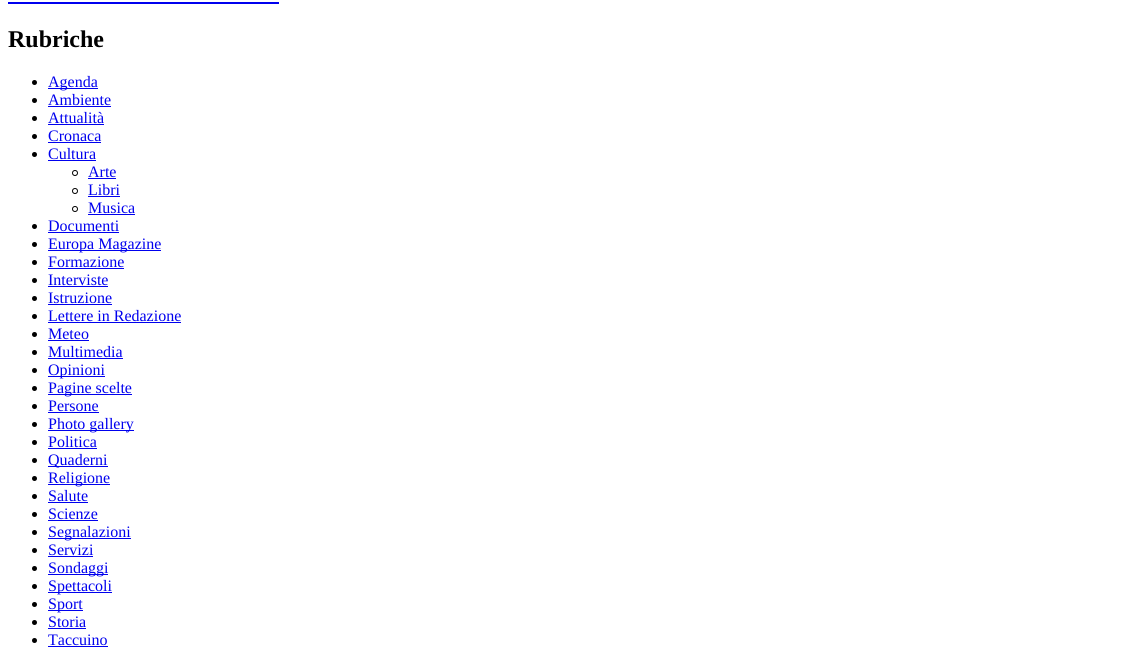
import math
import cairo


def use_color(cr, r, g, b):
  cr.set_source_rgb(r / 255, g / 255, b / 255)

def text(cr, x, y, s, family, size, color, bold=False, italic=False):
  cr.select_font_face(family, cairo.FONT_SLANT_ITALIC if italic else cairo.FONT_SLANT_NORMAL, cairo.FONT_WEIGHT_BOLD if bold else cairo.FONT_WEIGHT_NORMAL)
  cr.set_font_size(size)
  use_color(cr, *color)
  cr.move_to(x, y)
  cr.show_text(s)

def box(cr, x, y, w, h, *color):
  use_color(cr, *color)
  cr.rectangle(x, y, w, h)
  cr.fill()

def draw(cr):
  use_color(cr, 255, 255, 255)
  cr.paint()
  box(cr, 8, 2, 271, 2, 0, 0, 238)
  use_color(cr, 0, 0, 0)
  cr.arc(34.5, 82.5, 2.5, 0, 2 * math.pi)
  cr.fill()
  box(cr, 48, 88, 50, 1, 0, 0, 238)
  use_color(cr, 0, 0, 0)
  cr.arc(34.5, 100.5, 2.5, 0, 2 * math.pi)
  cr.fill()
  box(cr, 48, 106, 63, 1, 0, 0, 238)
  use_color(cr, 0, 0, 0)
  cr.arc(34.5, 118.5, 2.5, 0, 2 * math.pi)
  cr.fill()
  box(cr, 48, 124, 56, 1, 0, 0, 238)
  use_color(cr, 0, 0, 0)
  cr.arc(34.5, 136.5, 2.5, 0, 2 * math.pi)
  cr.fill()
  box(cr, 48, 142, 53, 1, 0, 0, 238)
  use_color(cr, 0, 0, 0)
  cr.arc(34.5, 154.5, 2.5, 0, 2 * math.pi)
  cr.fill()
  box(cr, 48, 160, 48, 1, 0, 0, 238)
  cr.arc(75, 173, 2.5, 0, 2 * math.pi)
  use_color(cr, 0, 0, 0)
  cr.set_line_width(1)
  cr.stroke()
  box(cr, 88, 178, 28, 1, 0, 0, 238)
  cr.arc(75, 191, 2.5, 0, 2 * math.pi)
  use_color(cr, 0, 0, 0)
  cr.stroke()
  box(cr, 88, 196, 32, 1, 0, 0, 238)
  cr.arc(75, 209, 2.5, 0, 2 * math.pi)
  use_color(cr, 0, 0, 0)
  cr.stroke()
  box(cr, 88, 214, 47, 1, 0, 0, 238)
  use_color(cr, 0, 0, 0)
  cr.arc(34.5, 226.5, 2.5, 0, 2 * math.pi)
  cr.fill()
  box(cr, 48, 232, 71, 1, 0, 0, 238)
  use_color(cr, 0, 0, 0)
  cr.arc(34.5, 244.5, 2.5, 0, 2 * math.pi)
  cr.fill()
  box(cr, 48, 250, 113, 1, 0, 0, 238)
  use_color(cr, 0, 0, 0)
  cr.arc(34.5, 262.5, 2.5, 0, 2 * math.pi)
  cr.fill()
  box(cr, 48, 268, 76, 1, 0, 0, 238)
  use_color(cr, 0, 0, 0)
  cr.arc(34.5, 280.5, 2.5, 0, 2 * math.pi)
  cr.fill()
  box(cr, 48, 286, 60, 1, 0, 0, 238)
  use_color(cr, 0, 0, 0)
  cr.arc(34.5, 298.5, 2.5, 0, 2 * math.pi)
  cr.fill()
  box(cr, 48, 304, 64, 1, 0, 0, 238)
  use_color(cr, 0, 0, 0)
  cr.arc(34.5, 316.5, 2.5, 0, 2 * math.pi)
  cr.fill()
  box(cr, 48, 322, 133, 1, 0, 0, 238)
  use_color(cr, 0, 0, 0)
  cr.arc(34.5, 334.5, 2.5, 0, 2 * math.pi)
  cr.fill()
  box(cr, 48, 340, 41, 1, 0, 0, 238)
  use_color(cr, 0, 0, 0)
  cr.arc(34.5, 352.5, 2.5, 0, 2 * math.pi)
  cr.fill()
  box(cr, 48, 358, 75, 1, 0, 0, 238)
  use_color(cr, 0, 0, 0)
  cr.arc(34.5, 370.5, 2.5, 0, 2 * math.pi)
  cr.fill()
  box(cr, 48, 376, 57, 1, 0, 0, 238)
  use_color(cr, 0, 0, 0)
  cr.arc(34.5, 388.5, 2.5, 0, 2 * math.pi)
  cr.fill()
  box(cr, 48, 394, 84, 1, 0, 0, 238)
  use_color(cr, 0, 0, 0)
  cr.arc(34.5, 406.5, 2.5, 0, 2 * math.pi)
  cr.fill()
  box(cr, 48, 412, 51, 1, 0, 0, 238)
  use_color(cr, 0, 0, 0)
  cr.arc(34.5, 424.5, 2.5, 0, 2 * math.pi)
  cr.fill()
  box(cr, 48, 430, 86, 1, 0, 0, 238)
  use_color(cr, 0, 0, 0)
  cr.arc(34.5, 442.5, 2.5, 0, 2 * math.pi)
  cr.fill()
  box(cr, 48, 448, 49, 1, 0, 0, 238)
  use_color(cr, 0, 0, 0)
  cr.arc(34.5, 460.5, 2.5, 0, 2 * math.pi)
  cr.fill()
  box(cr, 48, 466, 60, 1, 0, 0, 238)
  use_color(cr, 0, 0, 0)
  cr.arc(34.5, 478.5, 2.5, 0, 2 * math.pi)
  cr.fill()
  box(cr, 48, 484, 62, 1, 0, 0, 238)
  use_color(cr, 0, 0, 0)
  cr.arc(34.5, 496.5, 2.5, 0, 2 * math.pi)
  cr.fill()
  box(cr, 48, 502, 40, 1, 0, 0, 238)
  use_color(cr, 0, 0, 0)
  cr.arc(34.5, 514.5, 2.5, 0, 2 * math.pi)
  cr.fill()
  box(cr, 48, 520, 50, 1, 0, 0, 238)
  use_color(cr, 0, 0, 0)
  cr.arc(34.5, 532.5, 2.5, 0, 2 * math.pi)
  cr.fill()
  box(cr, 48, 538, 83, 1, 0, 0, 238)
  use_color(cr, 0, 0, 0)
  cr.arc(34.5, 550.5, 2.5, 0, 2 * math.pi)
  cr.fill()
  box(cr, 48, 556, 45, 1, 0, 0, 238)
  use_color(cr, 0, 0, 0)
  cr.arc(34.5, 568.5, 2.5, 0, 2 * math.pi)
  cr.fill()
  box(cr, 48, 574, 60, 1, 0, 0, 238)
  use_color(cr, 0, 0, 0)
  cr.arc(34.5, 586.5, 2.5, 0, 2 * math.pi)
  cr.fill()
  box(cr, 48, 592, 64, 1, 0, 0, 238)
  use_color(cr, 0, 0, 0)
  cr.arc(34.5, 604.5, 2.5, 0, 2 * math.pi)
  cr.fill()
  box(cr, 48, 610, 35, 1, 0, 0, 238)
  use_color(cr, 0, 0, 0)
  cr.arc(34.5, 622.5, 2.5, 0, 2 * math.pi)
  cr.fill()
  box(cr, 48, 628, 38, 1, 0, 0, 238)
  use_color(cr, 0, 0, 0)
  cr.arc(34.5, 640.5, 2.5, 0, 2 * math.pi)
  cr.fill()
  box(cr, 48, 646, 60, 1, 0, 0, 238)
  text(cr, 8, 47, "Rubriche", "Liberation Serif", 24, (0, 0, 0), bold=True)
  text(cr, 48, 87, "Agenda", "Liberation Serif", 16, (0, 0, 238))
  text(cr, 48, 105, "Ambiente", "Liberation Serif", 16, (0, 0, 238))
  text(cr, 48, 123, "Attualità", "Liberation Serif", 16, (0, 0, 238))
  text(cr, 48, 141, "Cronaca", "Liberation Serif", 16, (0, 0, 238))
  text(cr, 48, 159, "Cultura", "Liberation Serif", 16, (0, 0, 238))
  text(cr, 88, 177, "Arte", "Liberation Serif", 16, (0, 0, 238))
  text(cr, 88, 195, "Libri", "Liberation Serif", 16, (0, 0, 238))
  text(cr, 88, 213, "Musica", "Liberation Serif", 16, (0, 0, 238))
  text(cr, 48, 231, "Documenti", "Liberation Serif", 16, (0, 0, 238))
  text(cr, 48, 249, "Europa Magazine", "Liberation Serif", 16, (0, 0, 238))
  text(cr, 48, 267, "Formazione", "Liberation Serif", 16, (0, 0, 238))
  text(cr, 48, 285, "Interviste", "Liberation Serif", 16, (0, 0, 238))
  text(cr, 48, 303, "Istruzione", "Liberation Serif", 16, (0, 0, 238))
  text(cr, 48, 321, "Lettere in Redazione", "Liberation Serif", 16, (0, 0, 238))
  text(cr, 48, 339, "Meteo", "Liberation Serif", 16, (0, 0, 238))
  text(cr, 48, 357, "Multimedia", "Liberation Serif", 16, (0, 0, 238))
  text(cr, 48, 375, "Opinioni", "Liberation Serif", 16, (0, 0, 238))
  text(cr, 48, 393, "Pagine scelte", "Liberation Serif", 16, (0, 0, 238))
  text(cr, 48, 411, "Persone", "Liberation Serif", 16, (0, 0, 238))
  text(cr, 48, 429, "Photo gallery", "Liberation Serif", 16, (0, 0, 238))
  text(cr, 48, 447, "Politica", "Liberation Serif", 16, (0, 0, 238))
  text(cr, 48, 465, "Quaderni", "Liberation Serif", 16, (0, 0, 238))
  text(cr, 48, 483, "Religione", "Liberation Serif", 16, (0, 0, 238))
  text(cr, 48, 501, "Salute", "Liberation Serif", 16, (0, 0, 238))
  text(cr, 48, 519, "Scienze", "Liberation Serif", 16, (0, 0, 238))
  text(cr, 48, 537, "Segnalazioni", "Liberation Serif", 16, (0, 0, 238))
  text(cr, 48, 555, "Servizi", "Liberation Serif", 16, (0, 0, 238))
  text(cr, 48, 573, "Sondaggi", "Liberation Serif", 16, (0, 0, 238))
  text(cr, 48, 591, "Spettacoli", "Liberation Serif", 16, (0, 0, 238))
  text(cr, 48, 609, "Sport", "Liberation Serif", 16, (0, 0, 238))
  text(cr, 48, 627, "Storia", "Liberation Serif", 16, (0, 0, 238))
  text(cr, 48, 645, "Taccuino", "Liberation Serif", 16, (0, 0, 238))


surface = cairo.ImageSurface(cairo.FORMAT_RGB24, 1123, 647)
cr = cairo.Context(surface)
options = cairo.FontOptions()
options.set_hint_metrics(cairo.HINT_METRICS_OFF)
options.set_hint_style(cairo.HINT_STYLE_NONE)
cr.set_font_options(options)
cr.set_miter_limit(4)
draw(cr)
surface.write_to_png("out.png")
